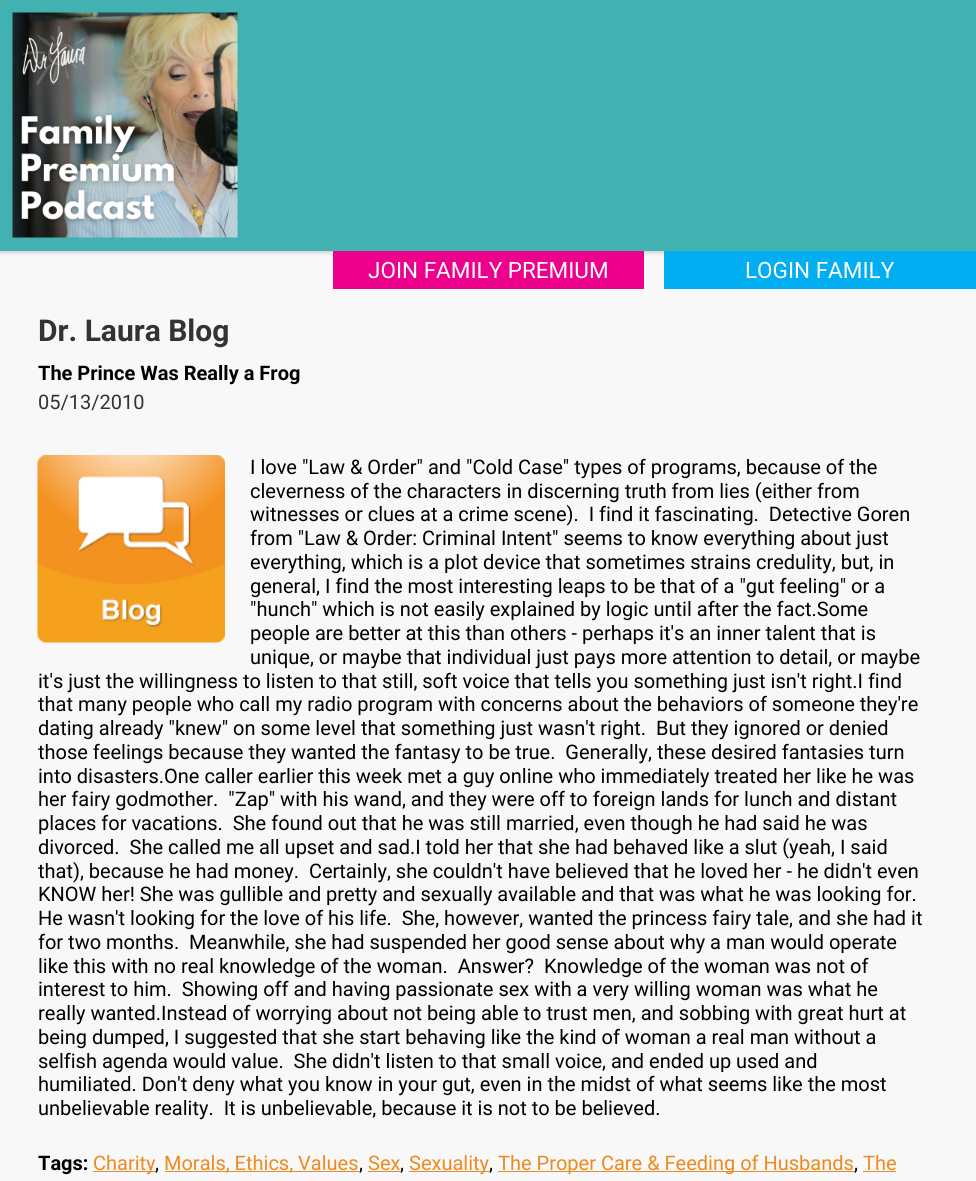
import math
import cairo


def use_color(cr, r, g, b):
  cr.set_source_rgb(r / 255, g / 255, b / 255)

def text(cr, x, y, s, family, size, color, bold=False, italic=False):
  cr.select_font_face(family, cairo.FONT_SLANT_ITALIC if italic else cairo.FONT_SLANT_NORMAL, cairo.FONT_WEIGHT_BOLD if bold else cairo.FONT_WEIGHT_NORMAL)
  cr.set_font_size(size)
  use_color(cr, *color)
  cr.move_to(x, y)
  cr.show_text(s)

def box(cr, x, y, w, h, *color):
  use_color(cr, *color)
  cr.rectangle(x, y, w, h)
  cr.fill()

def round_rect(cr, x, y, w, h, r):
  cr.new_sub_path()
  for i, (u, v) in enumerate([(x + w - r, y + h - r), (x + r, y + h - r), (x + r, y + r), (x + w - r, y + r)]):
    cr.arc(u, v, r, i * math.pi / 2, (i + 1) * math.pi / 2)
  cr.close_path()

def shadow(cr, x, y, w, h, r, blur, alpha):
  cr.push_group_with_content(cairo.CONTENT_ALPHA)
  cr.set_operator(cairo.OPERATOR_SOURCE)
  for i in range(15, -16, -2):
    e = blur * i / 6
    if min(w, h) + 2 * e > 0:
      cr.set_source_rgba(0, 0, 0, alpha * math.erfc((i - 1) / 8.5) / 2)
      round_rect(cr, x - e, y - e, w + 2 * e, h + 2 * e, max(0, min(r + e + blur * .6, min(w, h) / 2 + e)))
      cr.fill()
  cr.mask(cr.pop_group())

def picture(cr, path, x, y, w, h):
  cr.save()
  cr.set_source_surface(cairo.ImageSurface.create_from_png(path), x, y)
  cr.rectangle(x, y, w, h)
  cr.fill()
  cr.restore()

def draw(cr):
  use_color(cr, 248, 248, 248)
  cr.paint()
  use_color(cr, 0, 0, 0)
  shadow(cr, 0, 0, 976, 251, 0, 3, 0.3)
  box(cr, 0, 0, 976, 251, 65, 177, 178)
  picture(cr, "img_01.png", 12, 12, 226, 226)
  box(cr, 333, 251, 311, 38, 237, 0, 140)
  box(cr, 664, 251, 312, 38, 0, 174, 241)
  picture(cr, "img_02.png", 37, 455, 188, 188)
  box(cr, 93, 1171, 62, 1, 236, 138, 34)
  box(cr, 165, 1171, 194, 1, 236, 138, 34)
  box(cr, 368, 1171, 32, 1, 236, 138, 34)
  box(cr, 409, 1171, 80, 1, 236, 138, 34)
  box(cr, 498, 1171, 356, 1, 236, 138, 34)
  box(cr, 863, 1171, 33, 1, 236, 138, 34)
  text(cr, 368, 278, "JOIN FAMILY PREMIUM", "Roboto", 22.5, (255, 255, 255))
  text(cr, 745, 278, "LOGIN FAMILY", "Roboto", 22.5, (255, 255, 255))
  text(cr, 38, 341, "Dr. Laura Blog", "Roboto", 30, (51, 51, 51), bold=True)
  text(cr, 38, 380, "The Prince Was Really a Frog", "Roboto", 20, (0, 0, 0), bold=True)
  text(cr, 38, 409, "05/13/2010", "Roboto", 20, (51, 51, 51))
  text(cr, 250, 474, "I love \"Law & Order\" and \"Cold Case\" types of programs, because of the", "Roboto", 20, (0, 0, 0))
  text(cr, 250, 498, "cleverness of the characters in discerning truth from lies (either from", "Roboto", 20, (0, 0, 0))
  text(cr, 250, 521, "witnesses or clues at a crime scene).  I find it fascinating.  Detective Goren", "Roboto", 20, (0, 0, 0))
  text(cr, 250, 545, "from \"Law & Order: Criminal Intent\" seems to know everything about just", "Roboto", 20, (0, 0, 0))
  text(cr, 250, 569, "everything, which is a plot device that sometimes strains credulity, but, in", "Roboto", 20, (0, 0, 0))
  text(cr, 250, 593, "general, I find the most interesting leaps to be that of a \"gut feeling\" or a", "Roboto", 20, (0, 0, 0))
  text(cr, 250, 616, "\"hunch\" which is not easily explained by logic until after the fact.Some", "Roboto", 20, (0, 0, 0))
  text(cr, 250, 640, "people are better at this than others - perhaps it's an inner talent that is", "Roboto", 20, (0, 0, 0))
  text(cr, 250, 664, "unique, or maybe that individual just pays more attention to detail, or maybe", "Roboto", 20, (0, 0, 0))
  text(cr, 38, 688, "it's just the willingness to listen to that still, soft voice that tells you something just isn't right.I find", "Roboto", 20, (0, 0, 0))
  text(cr, 38, 711, "that many people who call my radio program with concerns about the behaviors of someone they're", "Roboto", 20, (0, 0, 0))
  text(cr, 38, 735, "dating already \"knew\" on some level that something just wasn't right.  But they ignored or denied", "Roboto", 20, (0, 0, 0))
  text(cr, 38, 759, "those feelings because they wanted the fantasy to be true.  Generally, these desired fantasies turn", "Roboto", 20, (0, 0, 0))
  text(cr, 38, 783, "into disasters.One caller earlier this week met a guy online who immediately treated her like he was", "Roboto", 20, (0, 0, 0))
  text(cr, 38, 806, "her fairy godmother.  \"Zap\" with his wand, and they were off to foreign lands for lunch and distant", "Roboto", 20, (0, 0, 0))
  text(cr, 38, 830, "places for vacations.  She found out that he was still married, even though he had said he was", "Roboto", 20, (0, 0, 0))
  text(cr, 38, 854, "divorced.  She called me all upset and sad.I told her that she had behaved like a slut (yeah, I said", "Roboto", 20, (0, 0, 0))
  text(cr, 38, 878, "that), because he had money.  Certainly, she couldn't have believed that he loved her - he didn't even", "Roboto", 20, (0, 0, 0))
  text(cr, 38, 901, "KNOW her! She was gullible and pretty and sexually available and that was what he was looking for.", "Roboto", 20, (0, 0, 0))
  text(cr, 38, 925, "He wasn't looking for the love of his life.  She, however, wanted the princess fairy tale, and she had it", "Roboto", 20, (0, 0, 0))
  text(cr, 38, 949, "for two months.  Meanwhile, she had suspended her good sense about why a man would operate", "Roboto", 20, (0, 0, 0))
  text(cr, 38, 973, "like this with no real knowledge of the woman.  Answer?  Knowledge of the woman was not of", "Roboto", 20, (0, 0, 0))
  text(cr, 38, 996, "interest to him.  Showing off and having passionate sex with a very willing woman was what he", "Roboto", 20, (0, 0, 0))
  text(cr, 38, 1020, "really wanted.Instead of worrying about not being able to trust men, and sobbing with great hurt at", "Roboto", 20, (0, 0, 0))
  text(cr, 38, 1044, "being dumped, I suggested that she start behaving like the kind of woman a real man without a", "Roboto", 20, (0, 0, 0))
  text(cr, 38, 1068, "selfish agenda would value.  She didn't listen to that small voice, and ended up used and", "Roboto", 20, (0, 0, 0))
  text(cr, 38, 1091, "humiliated. Don't deny what you know in your gut, even in the midst of what seems like the most", "Roboto", 20, (0, 0, 0))
  text(cr, 38, 1115, "unbelievable reality.  It is unbelievable, because it is not to be believed.", "Roboto", 20, (0, 0, 0))
  text(cr, 38, 1170, "Tags:", "Roboto", 20, (0, 0, 0), bold=True)
  text(cr, 93, 1170, "Charity", "Roboto", 20, (236, 138, 34))
  text(cr, 155, 1170, ",", "Roboto", 20, (0, 0, 0))
  text(cr, 164, 1170, "Morals, Ethics, Values", "Roboto", 20, (236, 138, 34))
  text(cr, 359, 1170, ",", "Roboto", 20, (0, 0, 0))
  text(cr, 368, 1170, "Sex", "Roboto", 20, (236, 138, 34))
  text(cr, 400, 1170, ",", "Roboto", 20, (0, 0, 0))
  text(cr, 409, 1170, "Sexuality", "Roboto", 20, (236, 138, 34))
  text(cr, 489, 1170, ",", "Roboto", 20, (0, 0, 0))
  text(cr, 498, 1170, "The Proper Care & Feeding of Husbands", "Roboto", 20, (236, 138, 34))
  text(cr, 854, 1170, ",", "Roboto", 20, (0, 0, 0))
  text(cr, 863, 1170, "The", "Roboto", 20, (236, 138, 34))


surface = cairo.ImageSurface(cairo.FORMAT_RGB24, 976, 1181)
cr = cairo.Context(surface)
options = cairo.FontOptions()
options.set_hint_metrics(cairo.HINT_METRICS_OFF)
options.set_hint_style(cairo.HINT_STYLE_NONE)
cr.set_font_options(options)
cr.set_miter_limit(4)
draw(cr)
surface.write_to_png("out.png")
